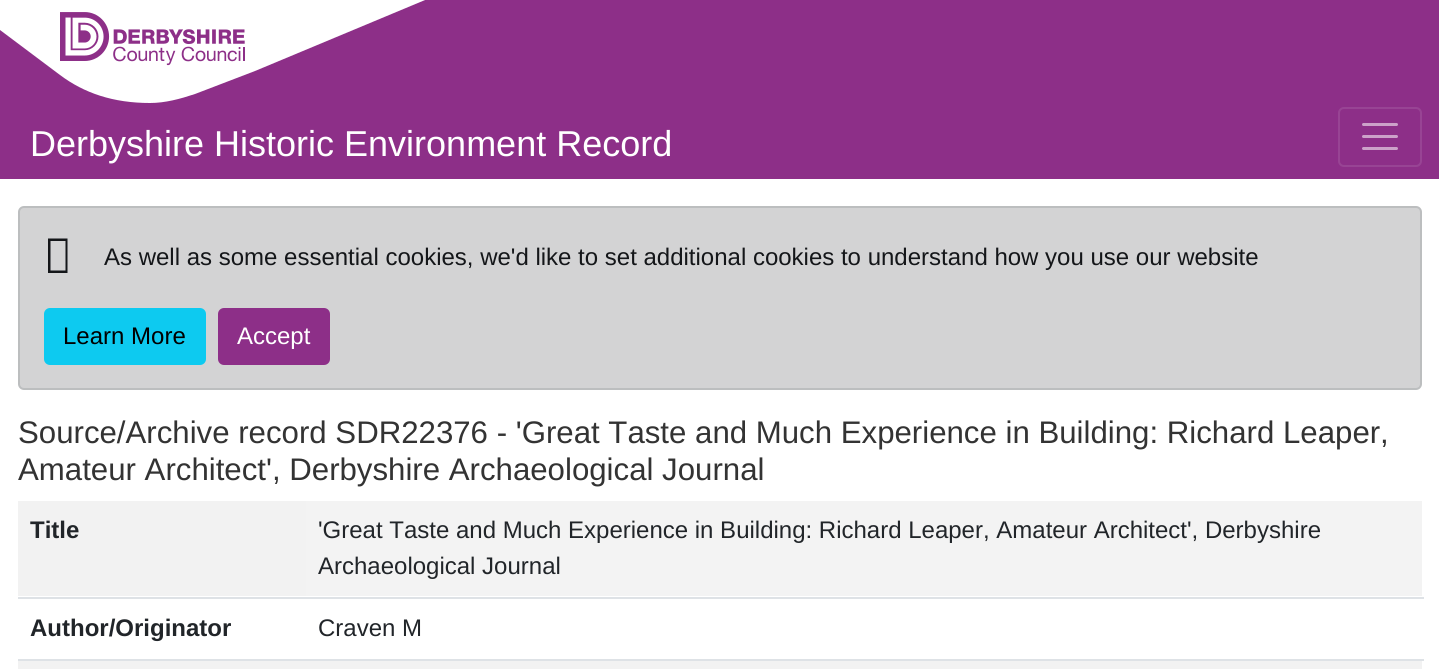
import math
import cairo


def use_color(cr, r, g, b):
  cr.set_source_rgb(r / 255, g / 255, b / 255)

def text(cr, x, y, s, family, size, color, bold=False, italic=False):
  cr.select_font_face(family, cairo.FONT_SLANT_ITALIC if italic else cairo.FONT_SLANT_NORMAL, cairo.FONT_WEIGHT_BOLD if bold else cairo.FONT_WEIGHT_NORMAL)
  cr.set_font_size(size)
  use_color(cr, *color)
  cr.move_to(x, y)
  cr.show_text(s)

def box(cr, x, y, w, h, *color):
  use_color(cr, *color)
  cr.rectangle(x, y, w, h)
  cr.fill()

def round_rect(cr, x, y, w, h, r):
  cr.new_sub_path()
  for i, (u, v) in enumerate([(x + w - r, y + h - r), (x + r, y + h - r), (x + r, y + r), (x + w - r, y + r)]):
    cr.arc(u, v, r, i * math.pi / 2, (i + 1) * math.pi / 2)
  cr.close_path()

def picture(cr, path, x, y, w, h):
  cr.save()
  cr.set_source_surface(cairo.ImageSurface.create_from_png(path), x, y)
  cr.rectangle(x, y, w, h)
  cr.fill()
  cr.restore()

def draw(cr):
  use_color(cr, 141, 47, 136)
  cr.paint()
  use_color(cr, 255, 255, 255)
  cr.new_path()
  cr.move_to(449, -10)
  cr.line_to(255, 71)
  cr.line_to(195, 94)
  cr.curve_to(180, 99, 165, 103, 150, 103)
  cr.curve_to(113, 103, 84, 93, 60, 75)
  cr.line_to(0, 30)
  cr.line_to(0, -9)
  cr.line_to(449, -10)
  cr.fill()
  picture(cr, "img_01.png", 60, 12, 185, 54)
  round_rect(cr, 1339, 108, 82, 58, 5)
  use_color(cr, 152, 68, 148)
  cr.stroke()
  cr.new_path()
  cr.move_to(1363.5, 124.5)
  cr.line_to(1396.5, 124.5)
  cr.move_to(1363.5, 136.5)
  cr.line_to(1396.5, 136.5)
  cr.move_to(1363.5, 148.5)
  cr.line_to(1396.5, 148.5)
  use_color(cr, 204, 161, 201)
  cr.set_line_width(3)
  cr.set_line_cap(cairo.LINE_CAP_ROUND)
  cr.stroke()
  box(cr, 0, 179, 1439, 490, 255, 255, 255)
  use_color(cr, 211, 211, 212)
  round_rect(cr, 19, 207, 1402, 182, 5)
  cr.fill_preserve()
  use_color(cr, 188, 190, 191)
  cr.set_line_width(2)
  cr.set_line_cap(cairo.LINE_CAP_BUTT)
  cr.stroke()
  use_color(cr, 20, 22, 25)
  cr.new_path()
  cr.move_to(48, 273)
  cr.line_to(48, 238.5)
  cr.line_to(67.5, 238.5)
  cr.line_to(67.5, 273)
  cr.close_path()
  cr.move_to(50.5, 270.5)
  cr.line_to(65.5, 270.5)
  cr.line_to(65.5, 241)
  cr.line_to(50.5, 241)
  cr.close_path()
  cr.fill()
  use_color(cr, 13, 202, 240)
  round_rect(cr, 45, 309, 160, 55, 5)
  cr.fill_preserve()
  cr.stroke()
  use_color(cr, 141, 47, 136)
  round_rect(cr, 219, 309, 110, 55, 5)
  cr.fill_preserve()
  cr.stroke()
  box(cr, 18, 501, 288, 95, 242, 242, 242)
  box(cr, 306, 501, 1116, 95, 243, 243, 243)
  box(cr, 18, 597, 1406, 2, 222, 226, 230)
  box(cr, 18, 659, 1406, 2, 222, 226, 230)
  box(cr, 18, 661, 1404, 8, 242, 242, 242)
  text(cr, 30, 156, "Derbyshire Historic Environment Record", "Liberation Sans", 36, (255, 255, 255))
  text(cr, 104, 265, "As well as some essential cookies, we'd like to set additional cookies to understand how you use our website", "Liberation Sans", 24, (20, 22, 25))
  text(cr, 63, 344, "Learn More", "Liberation Sans", 24, (0, 0, 0))
  text(cr, 237, 344, "Accept", "Liberation Sans", 24, (255, 255, 255))
  text(cr, 18, 443, "Source/Archive record SDR22376 - 'Great Taste and Much Experience in Building: Richard Leaper,", "Liberation Sans", 31.2, (51, 51, 51))
  text(cr, 18, 480, "Amateur Architect', Derbyshire Archaeological Journal", "Liberation Sans", 31.2, (51, 51, 51))
  text(cr, 30, 538, "Title", "Liberation Sans", 24, (33, 37, 41), bold=True)
  text(cr, 318, 538, "'Great Taste and Much Experience in Building: Richard Leaper, Amateur Architect', Derbyshire", "Liberation Sans", 24, (33, 37, 41))
  text(cr, 318, 574, "Archaeological Journal", "Liberation Sans", 24, (33, 37, 41))
  text(cr, 30, 636, "Author/Originator", "Liberation Sans", 24, (33, 37, 41), bold=True)
  text(cr, 318, 636, "Craven M", "Liberation Sans", 24, (33, 37, 41))


surface = cairo.ImageSurface(cairo.FORMAT_RGB24, 1439, 669)
cr = cairo.Context(surface)
options = cairo.FontOptions()
options.set_hint_metrics(cairo.HINT_METRICS_OFF)
options.set_hint_style(cairo.HINT_STYLE_NONE)
cr.set_font_options(options)
cr.set_miter_limit(4)
draw(cr)
surface.write_to_png("out.png")
